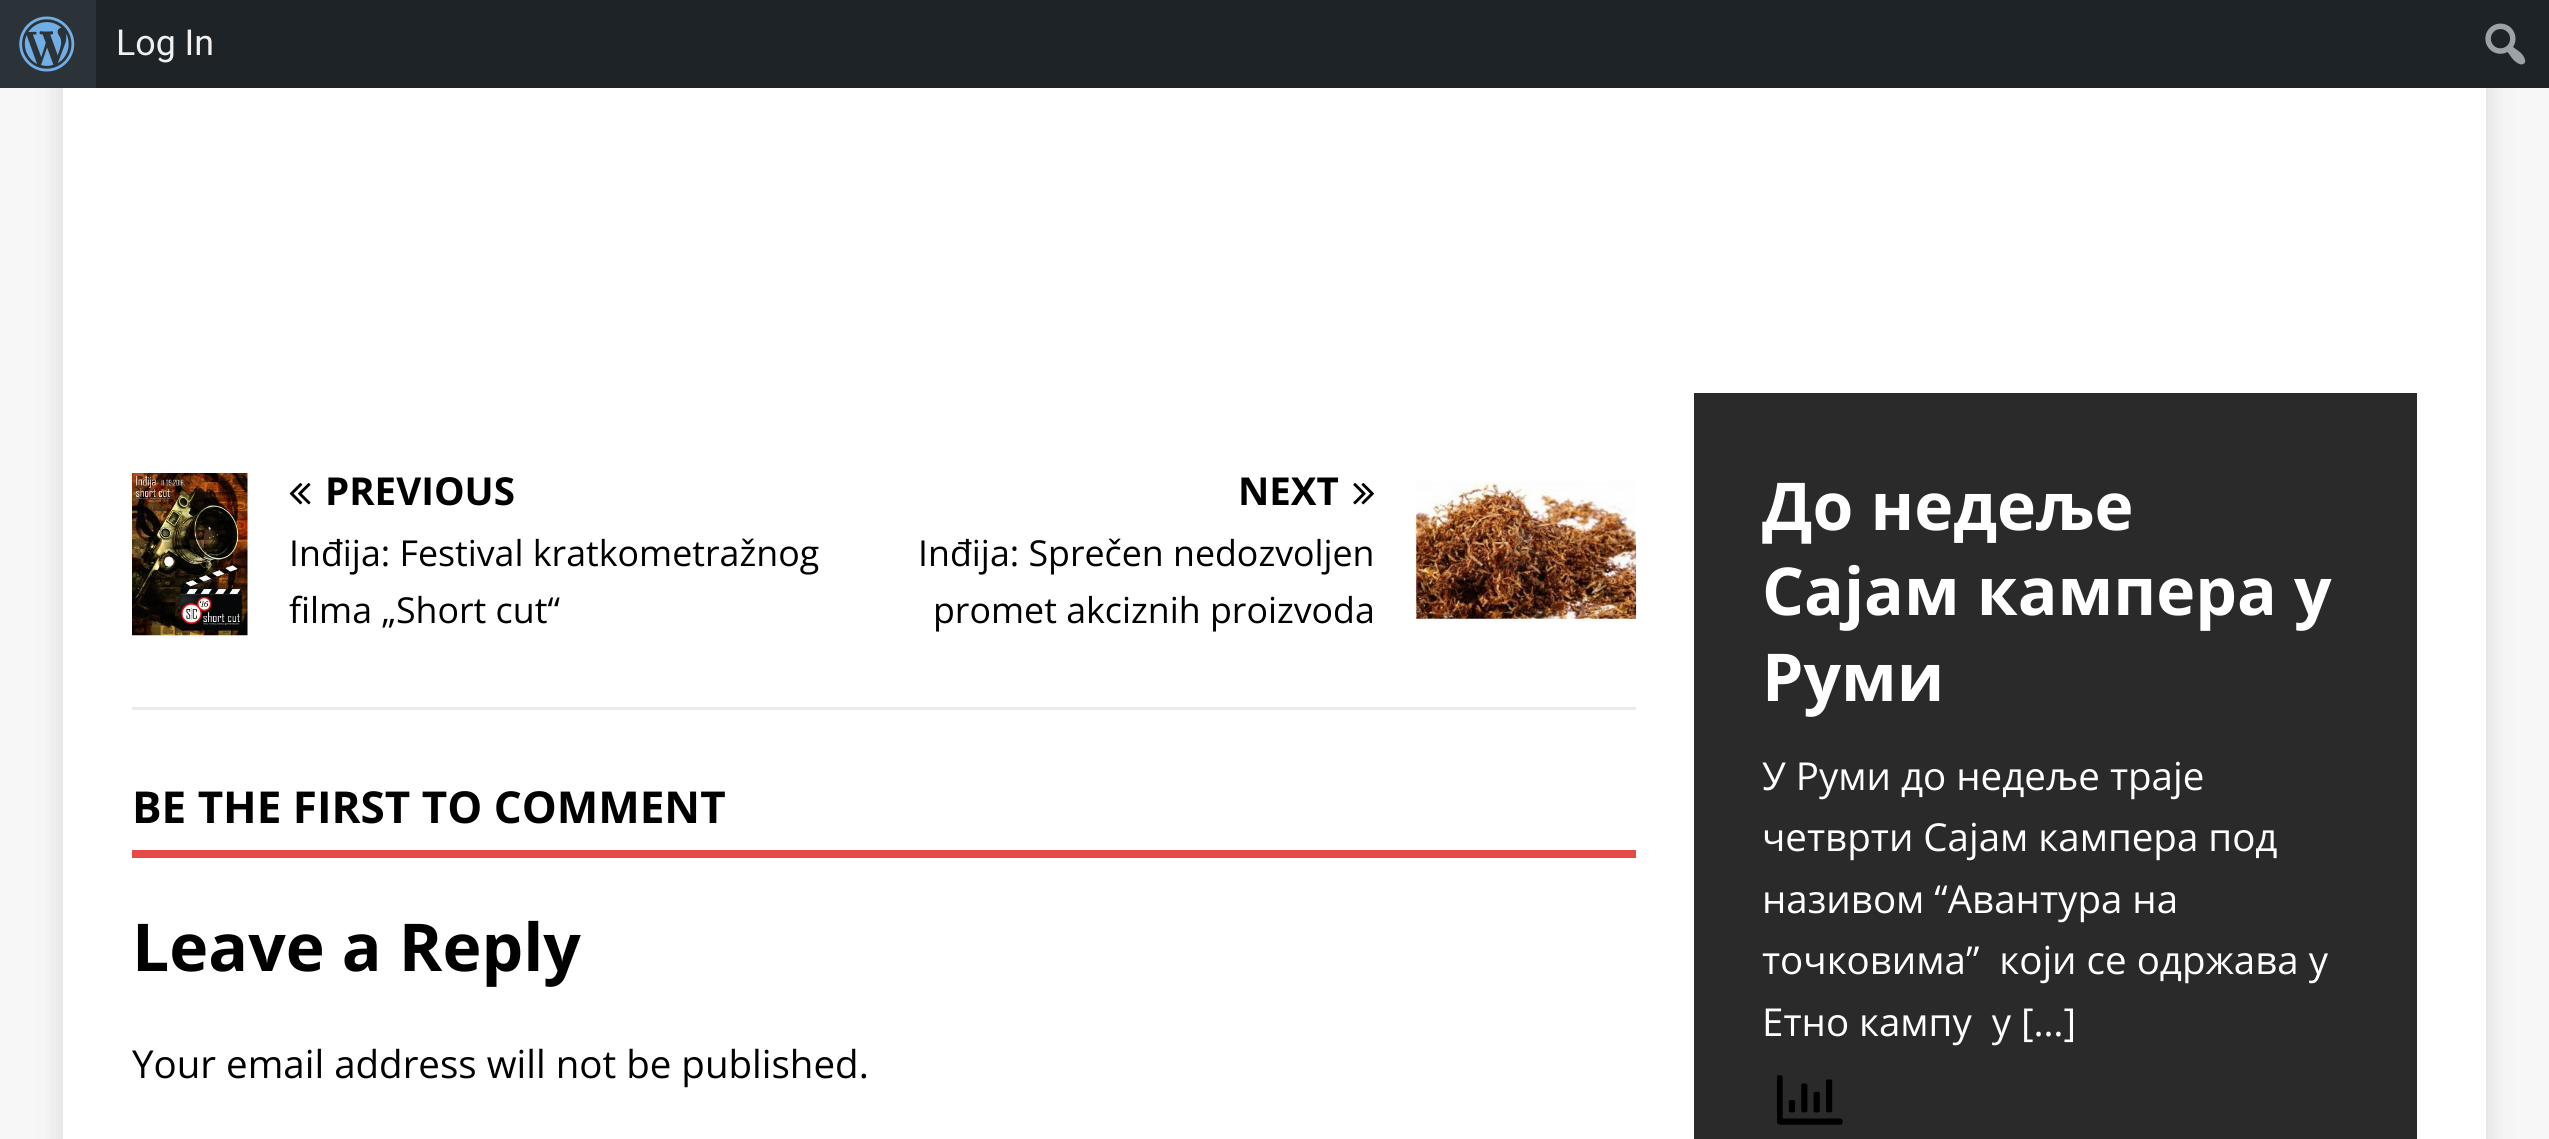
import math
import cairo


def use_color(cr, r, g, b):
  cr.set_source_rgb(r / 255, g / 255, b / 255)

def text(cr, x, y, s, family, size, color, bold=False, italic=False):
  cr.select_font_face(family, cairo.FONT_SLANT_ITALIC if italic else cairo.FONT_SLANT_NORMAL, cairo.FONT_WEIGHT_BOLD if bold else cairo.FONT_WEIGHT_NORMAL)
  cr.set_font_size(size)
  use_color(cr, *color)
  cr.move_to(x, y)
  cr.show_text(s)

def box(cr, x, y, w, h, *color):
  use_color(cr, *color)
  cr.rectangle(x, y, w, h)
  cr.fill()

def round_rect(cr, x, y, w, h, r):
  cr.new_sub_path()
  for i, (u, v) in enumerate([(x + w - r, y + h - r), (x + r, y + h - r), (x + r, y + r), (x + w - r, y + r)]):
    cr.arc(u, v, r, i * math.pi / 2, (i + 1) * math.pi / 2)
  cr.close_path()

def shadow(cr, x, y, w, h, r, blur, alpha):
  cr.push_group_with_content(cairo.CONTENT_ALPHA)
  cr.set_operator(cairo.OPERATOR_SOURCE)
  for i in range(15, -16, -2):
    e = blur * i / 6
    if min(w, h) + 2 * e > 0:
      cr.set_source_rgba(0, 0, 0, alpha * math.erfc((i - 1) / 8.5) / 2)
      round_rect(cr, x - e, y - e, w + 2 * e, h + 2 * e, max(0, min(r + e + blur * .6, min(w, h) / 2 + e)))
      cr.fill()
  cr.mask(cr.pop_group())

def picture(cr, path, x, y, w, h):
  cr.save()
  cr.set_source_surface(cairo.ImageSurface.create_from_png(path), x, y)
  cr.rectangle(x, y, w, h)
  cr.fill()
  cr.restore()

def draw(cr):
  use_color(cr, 247, 247, 247)
  cr.paint()
  use_color(cr, 50, 50, 50)
  shadow(cr, 63, -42, 2423, 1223, 0, 14, 0.17)
  box(cr, 96, 0, 2453, 88, 29, 35, 39)
  box(cr, 0, 0, 96, 88, 44, 51, 56)
  picture(cr, "img_01.png", 19, 16, 56, 56)
  picture(cr, "img_02.png", 2485, 23, 41, 42)
  box(cr, 63, 88, 2423, 1051, 255, 255, 255)
  box(cr, 132, 707, 1504, 3, 235, 235, 235)
  picture(cr, "img_03.png", 132, 473, 116, 163)
  picture(cr, "img_04.png", 289, 483, 22, 22)
  picture(cr, "img_05.png", 1353, 483, 21, 22)
  picture(cr, "img_06.png", 1416, 481, 221, 138)
  box(cr, 132, 850, 1504, 8, 230, 73, 70)
  box(cr, 1694, 393, 723, 746, 42, 42, 42)
  picture(cr, "img_07.png", 1777, 1075, 66, 50)
  text(cr, 116, 55, "Log In", "Roboto", 35.75, (240, 240, 241))
  text(cr, 325, 505, "PREVIOUS", "Open Sans", 38.5, (0, 0, 0), bold=True)
  text(cr, 289, 566, "Inđija: Festival kratkometražnog", "Open Sans", 35.75, (0, 0, 0))
  text(cr, 289, 623, "filma „Short cut“", "Open Sans", 35.75, (0, 0, 0))
  text(cr, 1238, 505, "NEXT", "Open Sans", 38.5, (0, 0, 0), bold=True)
  text(cr, 918, 566, "Inđija: Sprečen nedozvoljen", "Open Sans", 35.75, (0, 0, 0))
  text(cr, 933, 623, "promet akciznih proizvoda", "Open Sans", 35.75, (0, 0, 0))
  text(cr, 132, 823, "BE THE FIRST TO COMMENT", "Open Sans", 44, (0, 0, 0), bold=True)
  text(cr, 132, 971, "Leave a Reply", "Open Sans", 66, (0, 0, 0), bold=True)
  text(cr, 132, 1078, "Your email address will not be published.", "Open Sans", 38.5, (0, 0, 0))
  text(cr, 1762, 530, "До недеље", "Open Sans", 66, (255, 255, 255), bold=True)
  text(cr, 1762, 615, "Сајам кампера у", "Open Sans", 66, (255, 255, 255), bold=True)
  text(cr, 1762, 701, "Руми", "Open Sans", 66, (255, 255, 255), bold=True)
  text(cr, 1762, 790, "У Руми до недеље траје", "Open Sans", 38.5, (255, 255, 255))
  text(cr, 1762, 851, "четврти Сајам кампера под", "Open Sans", 38.5, (255, 255, 255))
  text(cr, 1762, 913, "називом “Авантура на", "Open Sans", 38.5, (255, 255, 255))
  text(cr, 1762, 974, "точковима”  који се одржава у", "Open Sans", 38.5, (255, 255, 255))
  text(cr, 1762, 1036, "Етно кампу  у […]", "Open Sans", 38.5, (255, 255, 255))


surface = cairo.ImageSurface(cairo.FORMAT_RGB24, 2549, 1139)
cr = cairo.Context(surface)
options = cairo.FontOptions()
options.set_hint_metrics(cairo.HINT_METRICS_OFF)
options.set_hint_style(cairo.HINT_STYLE_NONE)
cr.set_font_options(options)
cr.set_miter_limit(4)
draw(cr)
surface.write_to_png("out.png")
